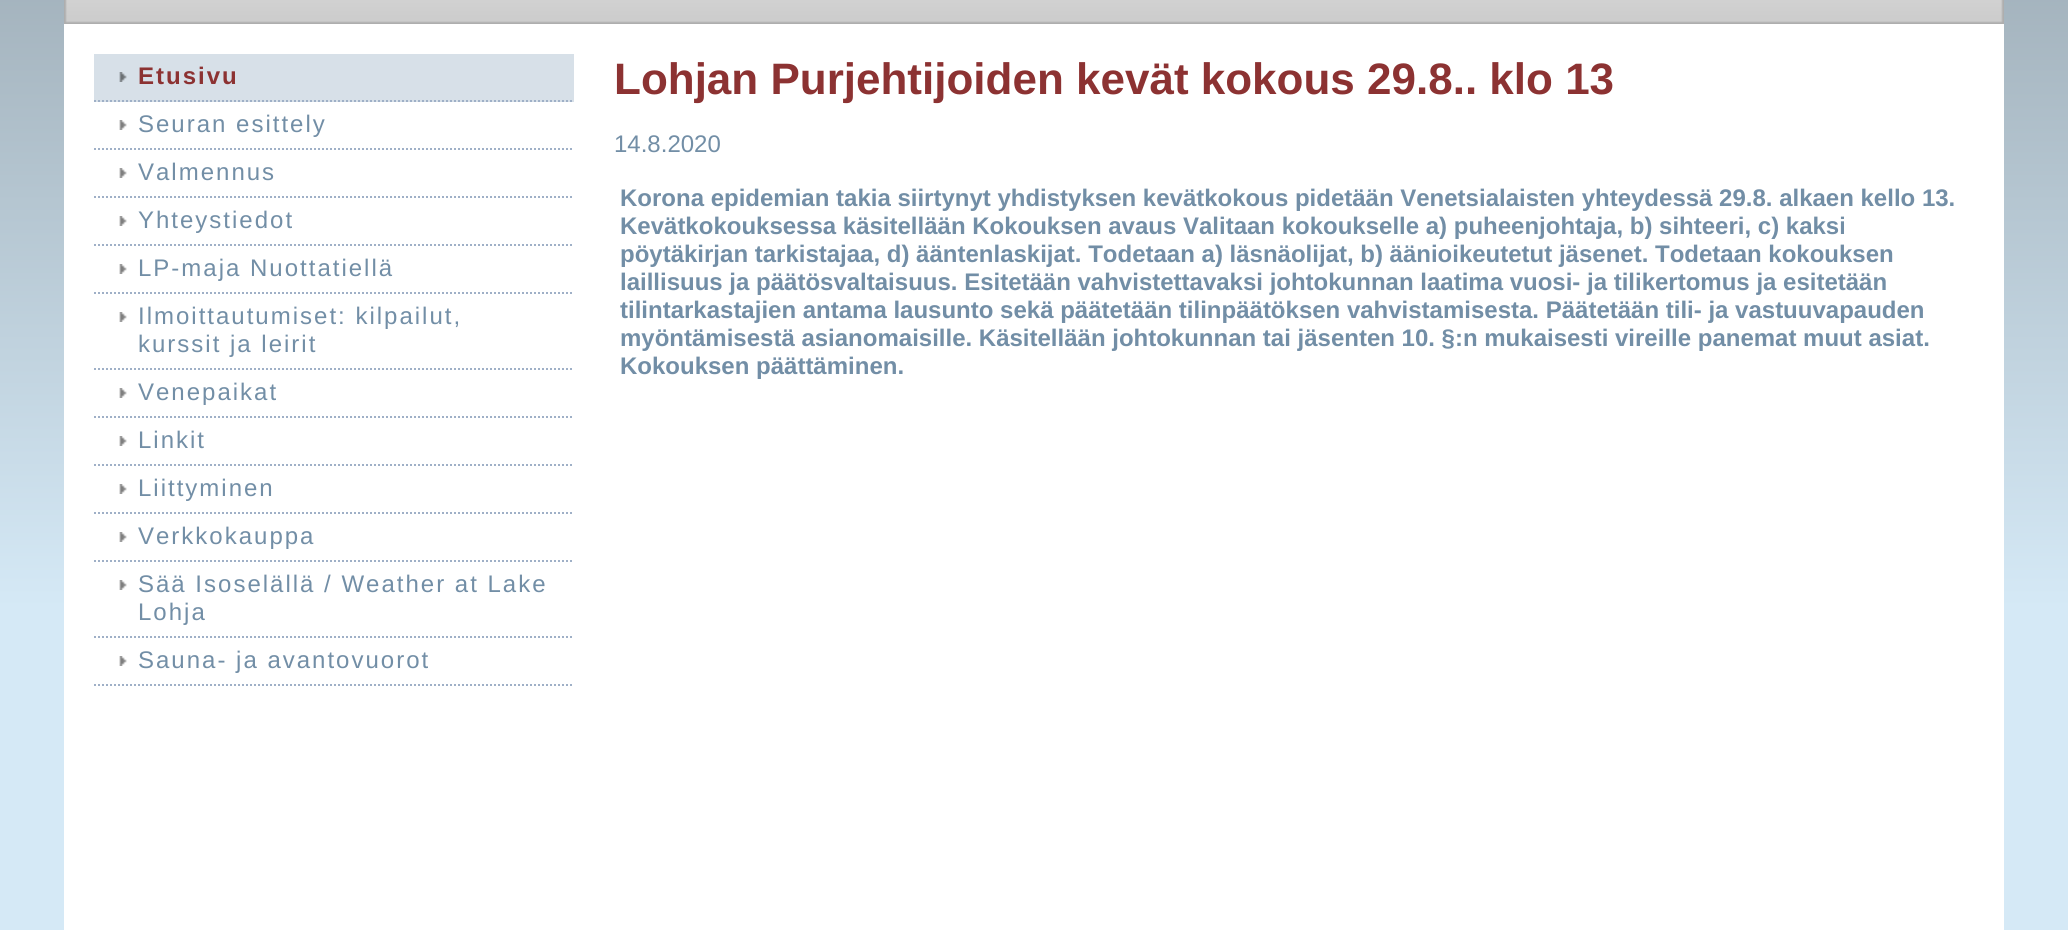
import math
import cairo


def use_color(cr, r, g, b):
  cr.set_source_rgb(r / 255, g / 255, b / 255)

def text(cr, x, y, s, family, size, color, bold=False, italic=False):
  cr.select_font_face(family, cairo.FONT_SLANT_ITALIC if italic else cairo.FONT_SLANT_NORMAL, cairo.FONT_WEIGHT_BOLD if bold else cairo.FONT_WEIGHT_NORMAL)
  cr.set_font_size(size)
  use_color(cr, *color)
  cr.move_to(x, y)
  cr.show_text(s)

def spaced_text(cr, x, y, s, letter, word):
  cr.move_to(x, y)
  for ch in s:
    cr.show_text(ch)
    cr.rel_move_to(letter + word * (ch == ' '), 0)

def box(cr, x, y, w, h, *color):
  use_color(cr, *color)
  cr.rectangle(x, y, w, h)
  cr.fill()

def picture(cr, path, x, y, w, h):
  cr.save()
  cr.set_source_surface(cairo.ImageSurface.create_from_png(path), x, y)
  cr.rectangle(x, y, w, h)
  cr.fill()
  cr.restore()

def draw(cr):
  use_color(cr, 255, 255, 255)
  cr.paint()
  gradient = cairo.LinearGradient(1034, -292, 1034, 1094)
  gradient.add_color_stop_rgba(0, 0.557, 0.608, 0.643, 1)
  gradient.add_color_stop_rgba(0.65, 0.835, 0.914, 0.965, 1)
  gradient.add_color_stop_rgba(1, 0.835, 0.914, 0.965, 1)
  cr.set_source(gradient)
  cr.rectangle(0, 0, 2068, 930)
  cr.fill()
  picture(cr, "img_01.png", 64, 0, 1940, 24)
  box(cr, 64, 24, 1940, 906, 255, 255, 255)
  box(cr, 94, 54, 480, 48, 215, 224, 232)
  cr.new_path()
  cr.move_to(94, 101)
  cr.line_to(574, 101)
  use_color(cr, 159, 176, 199)
  cr.set_dash([2, 2])
  cr.stroke()
  picture(cr, "img_02.png", 119, 72, 8, 10)
  cr.new_path()
  cr.move_to(94, 149)
  cr.line_to(574, 149)
  cr.stroke()
  picture(cr, "img_03.png", 119, 120, 8, 10)
  cr.new_path()
  cr.move_to(94, 197)
  cr.line_to(574, 197)
  cr.stroke()
  picture(cr, "img_03.png", 119, 168, 8, 10)
  cr.new_path()
  cr.move_to(94, 245)
  cr.line_to(574, 245)
  cr.stroke()
  picture(cr, "img_03.png", 119, 216, 8, 10)
  cr.new_path()
  cr.move_to(94, 293)
  cr.line_to(574, 293)
  cr.stroke()
  picture(cr, "img_03.png", 119, 264, 8, 10)
  cr.new_path()
  cr.move_to(94, 369)
  cr.line_to(574, 369)
  cr.stroke()
  picture(cr, "img_03.png", 119, 312, 8, 10)
  cr.new_path()
  cr.move_to(94, 417)
  cr.line_to(574, 417)
  cr.stroke()
  picture(cr, "img_03.png", 119, 388, 8, 10)
  cr.new_path()
  cr.move_to(94, 465)
  cr.line_to(574, 465)
  cr.stroke()
  picture(cr, "img_03.png", 119, 436, 8, 10)
  cr.new_path()
  cr.move_to(94, 513)
  cr.line_to(574, 513)
  cr.stroke()
  picture(cr, "img_03.png", 119, 484, 8, 10)
  cr.new_path()
  cr.move_to(94, 561)
  cr.line_to(574, 561)
  cr.stroke()
  picture(cr, "img_03.png", 119, 532, 8, 10)
  cr.new_path()
  cr.move_to(94, 637)
  cr.line_to(574, 637)
  cr.stroke()
  picture(cr, "img_03.png", 119, 580, 8, 10)
  cr.new_path()
  cr.move_to(94, 685)
  cr.line_to(574, 685)
  cr.stroke()
  picture(cr, "img_03.png", 119, 656, 8, 10)
  cr.select_font_face("Liberation Sans", cairo.FONT_SLANT_NORMAL, cairo.FONT_WEIGHT_BOLD)
  cr.set_font_size(24)
  use_color(cr, 140, 50, 50)
  spaced_text(cr, 138, 84, "Etusivu", 2, 0)
  cr.select_font_face("Liberation Sans")
  use_color(cr, 114, 142, 166)
  spaced_text(cr, 138, 132, "Seuran esittely", 2, 0)
  spaced_text(cr, 138, 180, "Valmennus", 2, 0)
  spaced_text(cr, 138, 228, "Yhteystiedot", 2, 0)
  spaced_text(cr, 138, 276, "LP-maja Nuottatiellä", 2, 0)
  spaced_text(cr, 138, 324, "Ilmoittautumiset: kilpailut,", 2, 0)
  spaced_text(cr, 138, 352, "kurssit ja leirit", 2, 0)
  spaced_text(cr, 138, 400, "Venepaikat", 2, 0)
  spaced_text(cr, 138, 448, "Linkit", 2, 0)
  spaced_text(cr, 138, 496, "Liittyminen", 2, 0)
  spaced_text(cr, 138, 544, "Verkkokauppa", 2, 0)
  spaced_text(cr, 138, 592, "Sää Isoselällä / Weather at Lake", 2, 0)
  spaced_text(cr, 138, 620, "Lohja", 2, 0)
  spaced_text(cr, 138, 668, "Sauna- ja avantovuorot", 2, 0)
  text(cr, 614, 94, "Lohjan Purjehtijoiden kevät kokous 29.8.. klo 13", "Liberation Sans", 44, (140, 50, 50), bold=True)
  text(cr, 614, 152, "14.8.2020", "Liberation Sans", 24, (114, 142, 166))
  text(cr, 620, 206, "Korona epidemian takia siirtynyt yhdistyksen kevätkokous pidetään Venetsialaisten yhteydessä 29.8. alkaen kello 13.", "Liberation Sans", 24, (114, 142, 166), bold=True)
  text(cr, 620, 234, "Kevätkokouksessa käsitellään Kokouksen avaus Valitaan kokoukselle a) puheenjohtaja, b) sihteeri, c) kaksi", "Liberation Sans", 24, (114, 142, 166), bold=True)
  text(cr, 620, 262, "pöytäkirjan tarkistajaa, d) ääntenlaskijat. Todetaan a) läsnäolijat, b) äänioikeutetut jäsenet. Todetaan kokouksen", "Liberation Sans", 24, (114, 142, 166), bold=True)
  text(cr, 620, 290, "laillisuus ja päätösvaltaisuus. Esitetään vahvistettavaksi johtokunnan laatima vuosi- ja tilikertomus ja esitetään", "Liberation Sans", 24, (114, 142, 166), bold=True)
  text(cr, 620, 318, "tilintarkastajien antama lausunto sekä päätetään tilinpäätöksen vahvistamisesta. Päätetään tili- ja vastuuvapauden", "Liberation Sans", 24, (114, 142, 166), bold=True)
  text(cr, 620, 346, "myöntämisestä asianomaisille. Käsitellään johtokunnan tai jäsenten 10. §:n mukaisesti vireille panemat muut asiat.", "Liberation Sans", 24, (114, 142, 166), bold=True)
  text(cr, 620, 374, "Kokouksen päättäminen.", "Liberation Sans", 24, (114, 142, 166), bold=True)


surface = cairo.ImageSurface(cairo.FORMAT_RGB24, 2068, 930)
cr = cairo.Context(surface)
options = cairo.FontOptions()
options.set_hint_metrics(cairo.HINT_METRICS_OFF)
options.set_hint_style(cairo.HINT_STYLE_NONE)
cr.set_font_options(options)
cr.set_miter_limit(4)
draw(cr)
surface.write_to_png("out.png")
